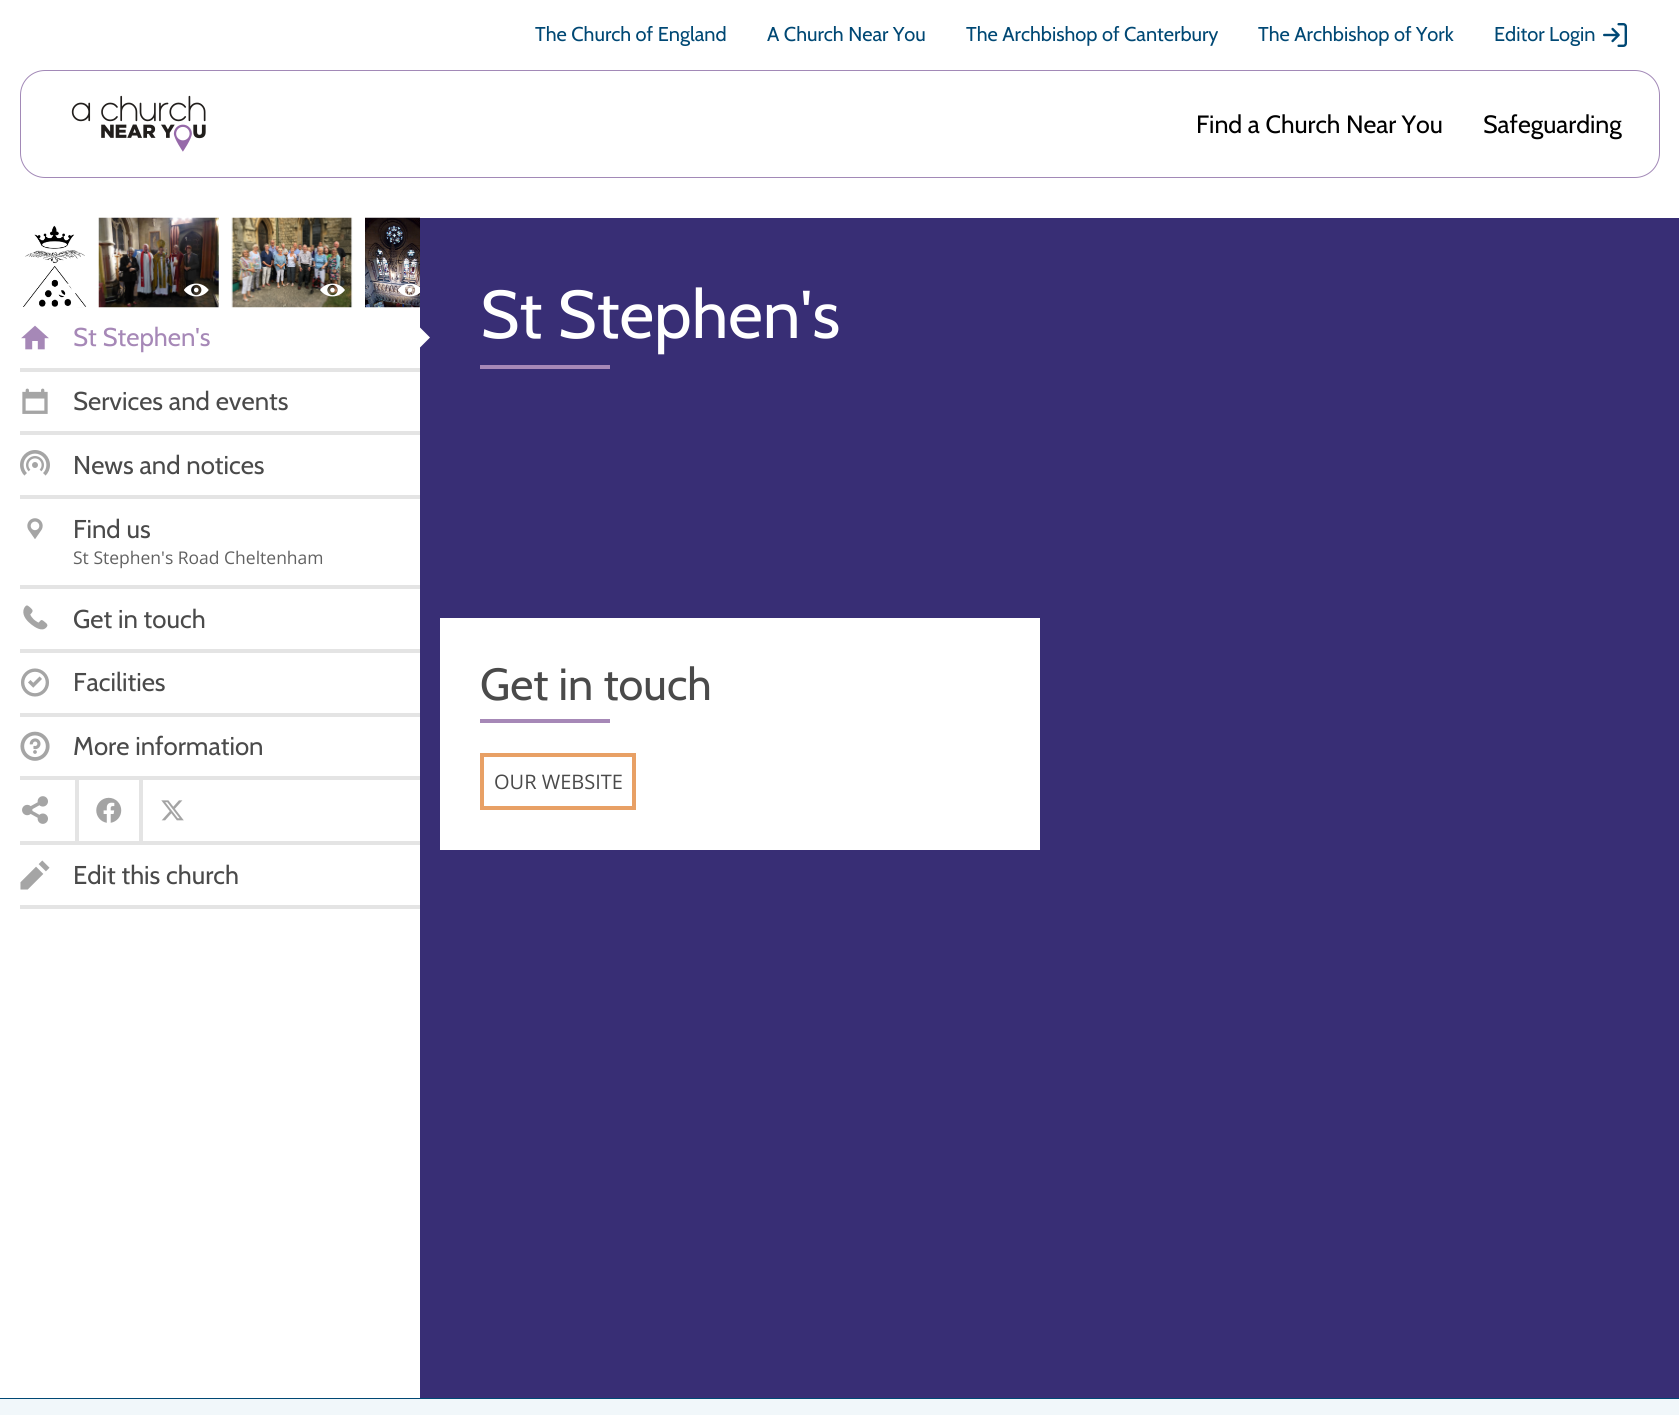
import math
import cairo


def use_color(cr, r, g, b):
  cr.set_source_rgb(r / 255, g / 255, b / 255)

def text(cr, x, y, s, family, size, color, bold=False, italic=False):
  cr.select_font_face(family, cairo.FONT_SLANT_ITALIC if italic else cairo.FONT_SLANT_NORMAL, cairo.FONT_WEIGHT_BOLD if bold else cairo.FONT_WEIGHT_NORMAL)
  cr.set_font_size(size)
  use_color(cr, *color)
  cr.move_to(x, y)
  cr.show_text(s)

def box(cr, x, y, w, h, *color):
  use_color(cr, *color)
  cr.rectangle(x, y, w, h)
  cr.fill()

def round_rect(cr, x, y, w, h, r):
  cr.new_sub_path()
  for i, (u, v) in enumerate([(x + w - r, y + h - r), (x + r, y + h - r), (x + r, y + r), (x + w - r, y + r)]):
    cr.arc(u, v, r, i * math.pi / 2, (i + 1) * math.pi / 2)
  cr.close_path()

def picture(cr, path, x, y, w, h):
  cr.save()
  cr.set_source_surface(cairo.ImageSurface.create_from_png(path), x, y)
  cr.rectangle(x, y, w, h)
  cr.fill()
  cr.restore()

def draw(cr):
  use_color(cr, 255, 255, 255)
  cr.paint()
  picture(cr, "img_01.png", 1603, 23, 24, 24)
  round_rect(cr, 20.5, 70.5, 1639, 107, 24.5)
  use_color(cr, 162, 137, 183)
  cr.set_line_width(1)
  cr.stroke()
  picture(cr, "img_02.png", 71, 95, 135, 57)
  box(cr, 420, 218, 1259, 1180, 56, 46, 117)
  picture(cr, "img_03.png", 23, 225, 64, 83)
  picture(cr, "img_04.png", 58, 283, 18, 14)
  picture(cr, "img_05.png", 98, 217, 121, 91)
  picture(cr, "img_06.png", 184, 283, 25, 14)
  picture(cr, "img_07.png", 231, 217, 122, 91)
  picture(cr, "img_08.png", 320, 283, 25, 14)
  picture(cr, "img_09.png", 365, 217, 55, 91)
  picture(cr, "img_10.png", 398, 283, 22, 14)
  picture(cr, "img_11.png", 21, 325, 28, 25)
  use_color(cr, 255, 255, 255)
  cr.new_path()
  cr.move_to(420, 347.5)
  cr.line_to(420, 327.5)
  cr.line_to(430, 337.5)
  cr.close_path()
  cr.fill()
  box(cr, 20, 368, 400, 4, 228, 228, 228)
  picture(cr, "img_12.png", 22, 388, 26, 26)
  box(cr, 20, 431, 400, 4, 228, 228, 228)
  picture(cr, "img_13.png", 20, 450, 30, 26)
  box(cr, 20, 495, 400, 4, 228, 228, 228)
  picture(cr, "img_14.png", 27, 518, 16, 21)
  box(cr, 20, 585, 400, 4, 228, 228, 228)
  picture(cr, "img_15.png", 23, 605, 25, 25)
  box(cr, 20, 649, 400, 4, 228, 228, 228)
  picture(cr, "img_16.png", 21, 668, 28, 29)
  box(cr, 20, 713, 400, 4, 228, 228, 228)
  picture(cr, "img_17.png", 20, 731, 30, 30)
  box(cr, 20, 776, 400, 4, 228, 228, 228)
  picture(cr, "img_18.png", 22, 796, 26, 28)
  box(cr, 75, 780, 4, 61, 228, 228, 228)
  picture(cr, "img_19.png", 96, 797, 26, 26)
  box(cr, 139, 780, 4, 61, 228, 228, 228)
  picture(cr, "img_20.png", 161, 800, 23, 21)
  box(cr, 20, 841, 400, 4, 228, 228, 228)
  box(cr, 20, 905, 400, 4, 228, 228, 228)
  picture(cr, "img_21.png", 20, 860, 30, 30)
  box(cr, 480, 365, 130, 4, 166, 136, 183)
  box(cr, 440, 618, 600, 232, 255, 255, 255)
  box(cr, 480, 719, 130, 4, 166, 136, 183)
  cr.rectangle(482, 755, 152, 53)
  use_color(cr, 232, 160, 101)
  cr.set_line_width(4)
  cr.stroke()
  box(cr, 0, 1399, 1679, 16, 241, 247, 250)
  box(cr, 0, 1398, 1679, 1, 0, 72, 116)
  text(cr, 535, 41, "The Church of England", "Cabin", 20, (0, 72, 116))
  text(cr, 767, 41, "A Church Near You", "Cabin", 20, (0, 72, 116))
  text(cr, 966, 41, "The Archbishop of Canterbury", "Cabin", 20, (0, 72, 116))
  text(cr, 1258, 41, "The Archbishop of York", "Cabin", 20, (0, 72, 116))
  text(cr, 1494, 41, "Editor Login", "Cabin", 20, (0, 72, 116))
  text(cr, 1196, 133, "Find a Church Near You", "Cabin", 25, (0, 0, 0))
  text(cr, 1483, 133, "Safeguarding", "Cabin", 25, (0, 0, 0))
  text(cr, 73, 346, "St Stephen's", "Cabin", 25.75, (166, 136, 183))
  text(cr, 73, 410, "Services and events", "Cabin", 25.75, (74, 74, 74))
  text(cr, 73, 474, "News and notices", "Cabin", 25.75, (74, 74, 74))
  text(cr, 73, 538, "Find us", "Cabin", 25.75, (74, 74, 74))
  text(cr, 73, 564, "St Stephen's Road Cheltenham", "Open Sans", 17.5, (97, 97, 97))
  text(cr, 73, 628, "Get in touch", "Cabin", 25.75, (74, 74, 74))
  text(cr, 73, 691, "Facilities", "Cabin", 25.75, (74, 74, 74))
  text(cr, 73, 755, "More information", "Cabin", 25.75, (74, 74, 74))
  text(cr, 73, 884, "Edit this church", "Cabin", 25.75, (74, 74, 74))
  text(cr, 480, 338, "St Stephen's", "Cabin", 67.5, (255, 255, 255))
  text(cr, 480, 700, "Get in touch", "Cabin", 45, (74, 74, 74))
  text(cr, 494, 789, "OUR WEBSITE", "Open Sans", 20, (74, 74, 74))


surface = cairo.ImageSurface(cairo.FORMAT_RGB24, 1679, 1415)
cr = cairo.Context(surface)
options = cairo.FontOptions()
options.set_hint_metrics(cairo.HINT_METRICS_OFF)
options.set_hint_style(cairo.HINT_STYLE_NONE)
cr.set_font_options(options)
cr.set_miter_limit(4)
draw(cr)
surface.write_to_png("out.png")
